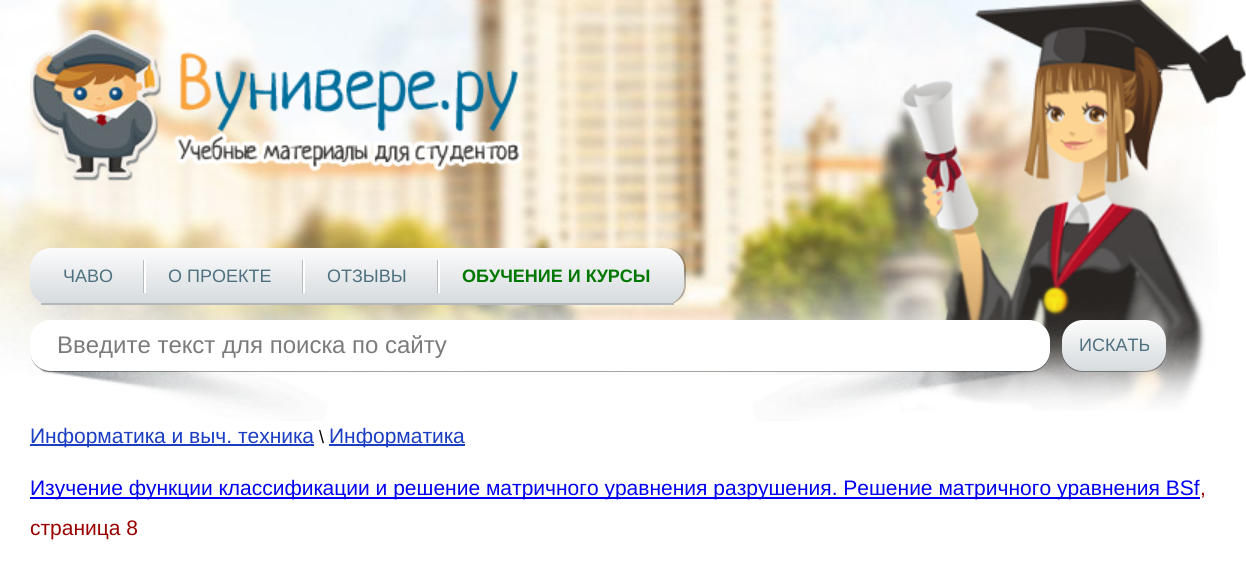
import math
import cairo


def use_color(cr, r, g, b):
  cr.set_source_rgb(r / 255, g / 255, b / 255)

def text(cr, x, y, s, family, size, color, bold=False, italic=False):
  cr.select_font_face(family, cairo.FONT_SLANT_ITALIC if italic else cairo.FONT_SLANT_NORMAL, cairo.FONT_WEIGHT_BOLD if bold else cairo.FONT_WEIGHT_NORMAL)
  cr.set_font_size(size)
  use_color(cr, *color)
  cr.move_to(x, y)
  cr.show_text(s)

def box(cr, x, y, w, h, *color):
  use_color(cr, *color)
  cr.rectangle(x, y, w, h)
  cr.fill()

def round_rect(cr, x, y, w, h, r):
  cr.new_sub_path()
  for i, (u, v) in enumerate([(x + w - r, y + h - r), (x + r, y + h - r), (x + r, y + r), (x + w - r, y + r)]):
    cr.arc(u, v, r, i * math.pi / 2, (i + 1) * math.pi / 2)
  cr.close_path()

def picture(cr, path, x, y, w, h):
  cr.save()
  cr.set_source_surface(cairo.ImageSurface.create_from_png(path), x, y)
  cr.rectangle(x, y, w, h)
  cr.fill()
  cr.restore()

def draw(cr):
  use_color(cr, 255, 255, 255)
  cr.paint()
  picture(cr, "img_01.png", 0, 0, 1218, 375)
  picture(cr, "img_02.png", 30, 30, 492, 152)
  picture(cr, "img_03.png", 900, 0, 346, 411)
  cr.set_source_rgba(0, 0, 0, 0.25)
  cr.new_path()
  cr.move_to(47, 304)
  cr.line_to(53, 305)
  cr.line_to(665, 305)
  cr.curve_to(677, 305, 686, 296, 686, 284)
  cr.line_to(686, 269)
  cr.curve_to(686, 259, 679, 250, 669, 248)
  cr.curve_to(678, 251, 684, 259, 684, 268)
  cr.line_to(684, 284)
  cr.curve_to(684, 295, 675, 304, 663, 304)
  cr.line_to(51, 304)
  cr.close_path()
  cr.fill()
  cr.save()
  round_rect(cr, 30, 248, 654, 57, 21)
  cr.clip()
  gradient = cairo.LinearGradient(357, 247, 357, 303)
  gradient.add_color_stop_rgba(0, 0.988, 0.988, 0.988, 1)
  gradient.add_color_stop_rgba(1, 0.839, 0.859, 0.871, 1)
  cr.set_source(gradient)
  cr.new_path()
  cr.move_to(51, 248)
  cr.line_to(663, 248)
  cr.curve_to(674.5, 248, 684, 257.5, 684, 269)
  cr.line_to(684, 303)
  cr.line_to(30, 303)
  cr.line_to(30, 269)
  cr.curve_to(30, 257.5, 39.5, 248, 51, 248)
  cr.close_path()
  cr.fill()
  cr.restore()
  box(cr, 41, 303, 633, 2, 179, 184, 188)
  use_color(cr, 183, 188, 191)
  cr.new_path()
  cr.move_to(143, 260)
  cr.line_to(143, 293)
  cr.line_to(145, 293)
  cr.line_to(145, 292.5)
  cr.line_to(144, 292.5)
  cr.line_to(144, 260)
  cr.close_path()
  cr.fill()
  box(cr, 144, 260, 2, 33, 255, 255, 255)
  use_color(cr, 183, 188, 191)
  cr.new_path()
  cr.move_to(302, 260)
  cr.line_to(302, 293)
  cr.line_to(304, 293)
  cr.line_to(304, 292.5)
  cr.line_to(303, 292.5)
  cr.line_to(303, 260)
  cr.close_path()
  cr.fill()
  box(cr, 303, 260, 2, 33, 255, 255, 255)
  use_color(cr, 183, 188, 191)
  cr.new_path()
  cr.move_to(437, 260)
  cr.line_to(437, 293)
  cr.line_to(439, 293)
  cr.line_to(439, 292.5)
  cr.line_to(438, 292.5)
  cr.line_to(438, 260)
  cr.close_path()
  cr.fill()
  box(cr, 438, 260, 2, 33, 255, 255, 255)
  picture(cr, "img_04.png", 40, 367, 287, 54)
  picture(cr, "img_05.png", 753, 367, 287, 54)
  cr.set_source_rgba(0, 0, 0, 0.35)
  cr.new_path()
  cr.move_to(30, 350)
  cr.curve_to(30, 362, 38, 372, 51, 372)
  cr.line_to(1029, 372)
  cr.curve_to(1042, 372, 1050, 362, 1050, 350)
  cr.curve_to(1050, 361, 1041, 370, 1029, 370)
  cr.line_to(51, 370)
  cr.curve_to(39, 370, 30, 361, 30, 350)
  cr.close_path()
  cr.fill()
  use_color(cr, 255, 255, 255)
  round_rect(cr, 30, 320, 1020, 51, 21)
  cr.fill()
  cr.set_source_rgba(0, 0, 0, 0.35)
  cr.new_path()
  cr.move_to(1062, 350)
  cr.line_to(1062, 351)
  cr.curve_to(1062, 363, 1071, 372, 1083, 372)
  cr.line_to(1145, 372)
  cr.curve_to(1157, 372, 1166, 363, 1166, 351)
  cr.line_to(1166, 342)
  cr.curve_to(1166, 339, 1166, 337, 1165, 335)
  cr.line_to(1166, 340)
  cr.line_to(1166, 350)
  cr.curve_to(1166, 361, 1156, 370, 1144, 370)
  cr.line_to(1083, 370)
  cr.curve_to(1071, 370, 1062, 361, 1062, 350)
  cr.close_path()
  cr.fill()
  gradient = cairo.LinearGradient(1114, 320, 1114, 371)
  gradient.add_color_stop_rgba(0, 0.988, 0.988, 0.988, 1)
  gradient.add_color_stop_rgba(1, 0.839, 0.859, 0.871, 1)
  cr.set_source(gradient)
  round_rect(cr, 1062, 320, 104, 51, 21)
  cr.fill()
  box(cr, 30, 444, 284, 2, 26, 61, 193)
  box(cr, 329, 444, 136, 2, 26, 61, 193)
  box(cr, 30, 497, 1170, 2, 0, 0, 238)
  text(cr, 63, 282, "ЧАВО", "Liberation Sans", 18, (78, 112, 128))
  text(cr, 168, 282, "О ПРОЕКТЕ", "Liberation Sans", 18, (78, 112, 128))
  text(cr, 327, 282, "ОТЗЫВЫ", "Liberation Sans", 18, (78, 112, 128))
  text(cr, 462, 282, "ОБУЧЕНИЕ И КУРСЫ", "Liberation Sans", 18, (0, 119, 0), bold=True)
  text(cr, 57, 353, "Введите текст для поиска по сайту", "Liberation Sans", 24, (123, 123, 123))
  text(cr, 1079, 351, "ИСКАТЬ", "Liberation Sans", 18, (78, 112, 128))
  text(cr, 30, 443, "Информатика и выч. техника", "Liberation Sans", 21, (26, 61, 193))
  text(cr, 319, 443, "\\", "Liberation Sans", 18, (0, 0, 0))
  text(cr, 329, 443, "Информатика", "Liberation Sans", 21, (26, 61, 193))
  text(cr, 30, 495, "Изучение функции классификации и решение матричного уравнения разрушения. Решение матричного уравнения BSf", "Liberation Sans", 21, (0, 0, 238))
  text(cr, 1200, 495, ",", "Liberation Sans", 21, (153, 0, 0))
  text(cr, 30, 535, "страница 8", "Liberation Sans", 21, (153, 0, 0))


surface = cairo.ImageSurface(cairo.FORMAT_RGB24, 1246, 583)
cr = cairo.Context(surface)
options = cairo.FontOptions()
options.set_hint_metrics(cairo.HINT_METRICS_OFF)
options.set_hint_style(cairo.HINT_STYLE_NONE)
cr.set_font_options(options)
cr.set_miter_limit(4)
draw(cr)
surface.write_to_png("out.png")
